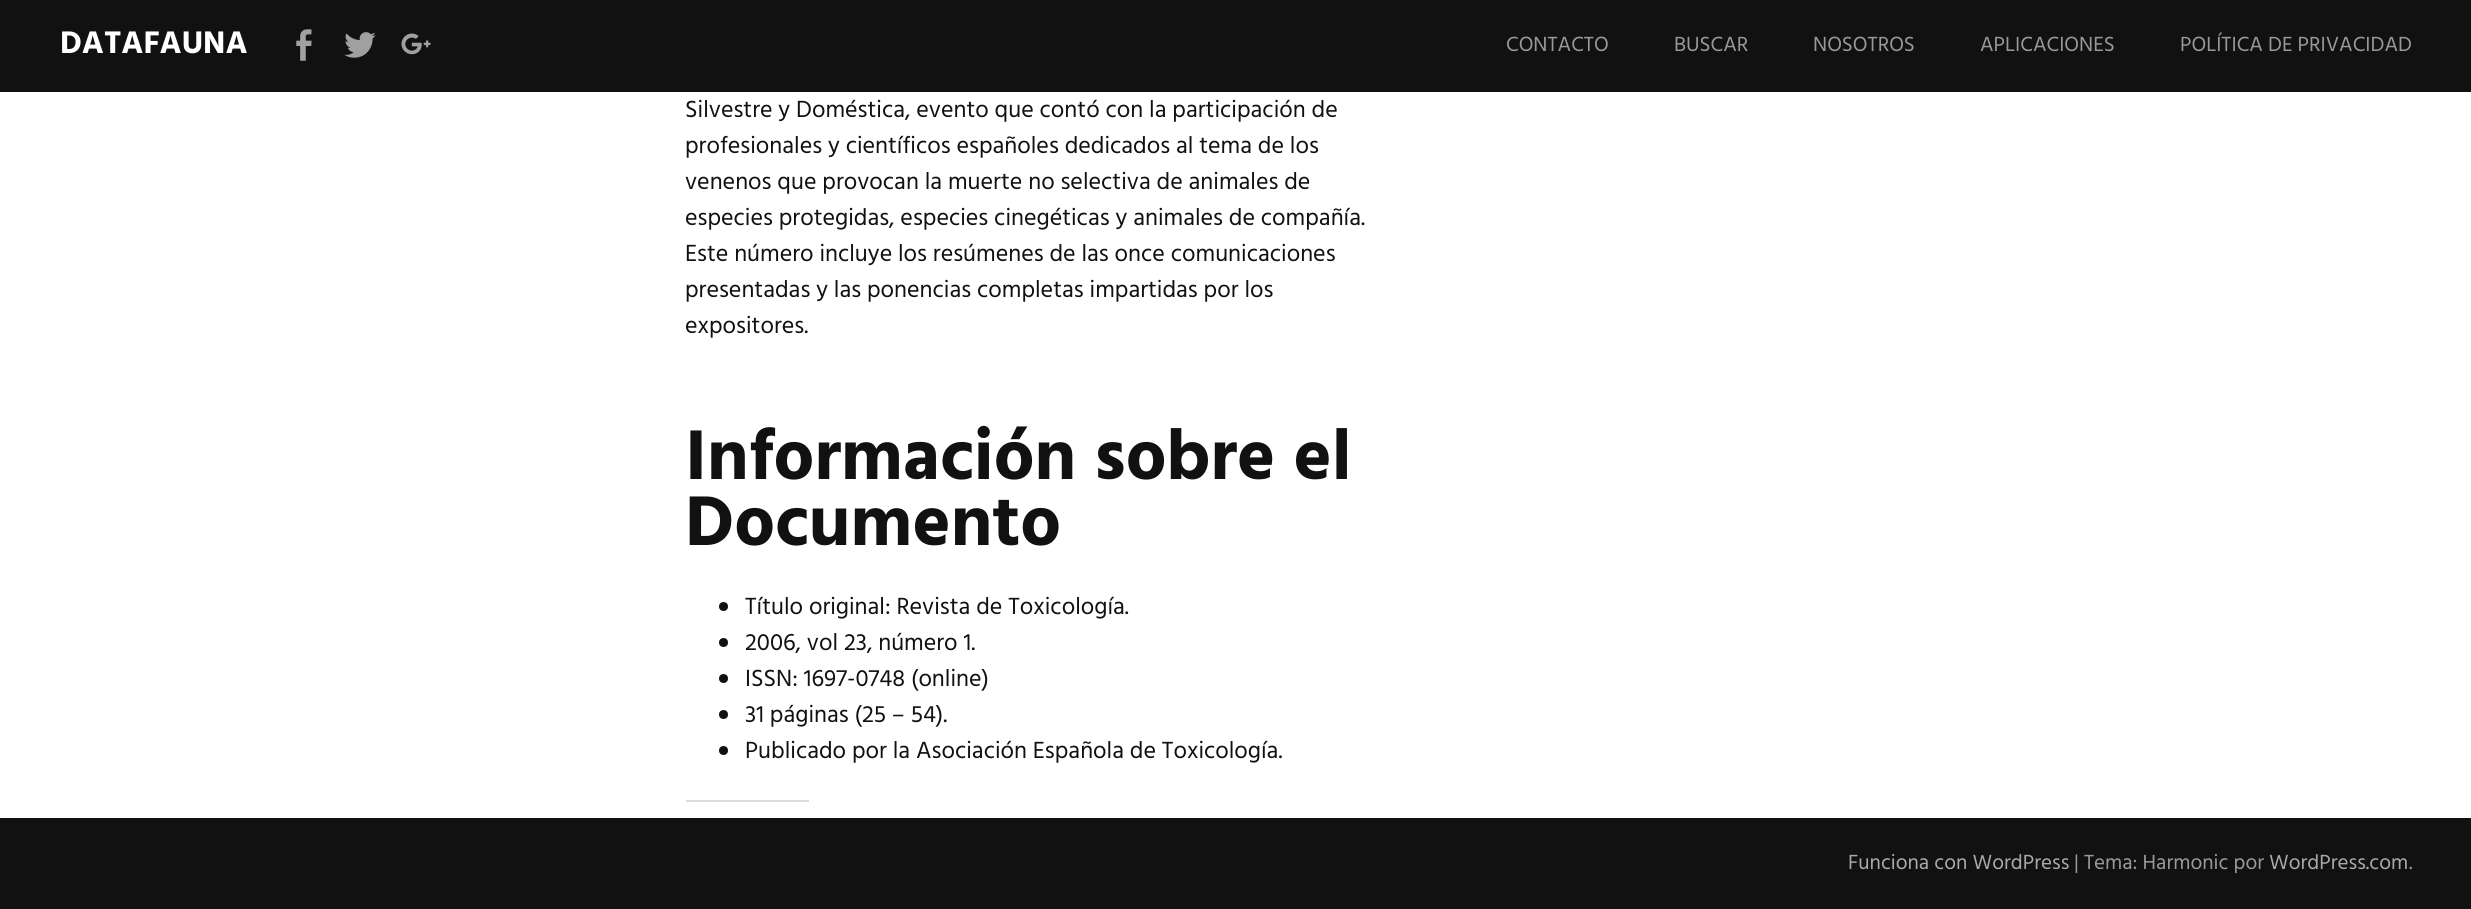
import math
import cairo


def use_color(cr, r, g, b):
  cr.set_source_rgb(r / 255, g / 255, b / 255)

def text(cr, x, y, s, family, size, color, bold=False, italic=False):
  cr.select_font_face(family, cairo.FONT_SLANT_ITALIC if italic else cairo.FONT_SLANT_NORMAL, cairo.FONT_WEIGHT_BOLD if bold else cairo.FONT_WEIGHT_NORMAL)
  cr.set_font_size(size)
  use_color(cr, *color)
  cr.move_to(x, y)
  cr.show_text(s)

def box(cr, x, y, w, h, *color):
  use_color(cr, *color)
  cr.rectangle(x, y, w, h)
  cr.fill()

def picture(cr, path, x, y, w, h):
  cr.save()
  cr.set_source_surface(cairo.ImageSurface.create_from_png(path), x, y)
  cr.rectangle(x, y, w, h)
  cr.fill()
  cr.restore()

def draw(cr):
  use_color(cr, 255, 255, 255)
  cr.paint()
  box(cr, 0, 0, 2471, 92, 17, 17, 17)
  picture(cr, "img_01.png", 296, 29, 16, 32)
  picture(cr, "img_02.png", 344, 32, 32, 26)
  picture(cr, "img_03.png", 401, 33, 30, 22)
  cr.arc(723.5, 606.5, 4.5, 0, 2 * math.pi)
  cr.fill()
  cr.arc(723.5, 642.5, 4.5, 0, 2 * math.pi)
  cr.fill()
  cr.arc(723.5, 678.5, 4.5, 0, 2 * math.pi)
  cr.fill()
  cr.arc(723.5, 714.5, 4.5, 0, 2 * math.pi)
  cr.fill()
  cr.arc(723.5, 750.5, 4.5, 0, 2 * math.pi)
  cr.fill()
  box(cr, 686, 800, 123, 2, 220, 220, 222)
  box(cr, 0, 818, 2471, 91, 17, 17, 17)
  text(cr, 60, 53, "DATAFAUNA", "Hind", 32, (255, 255, 255), bold=True)
  text(cr, 1506, 51, "CONTACTO", "Hind", 21, (153, 153, 153))
  text(cr, 1674, 51, "BUSCAR", "Hind", 21, (153, 153, 153))
  text(cr, 1813, 51, "NOSOTROS", "Hind", 21, (153, 153, 153))
  text(cr, 1980, 51, "APLICACIONES", "Hind", 21, (153, 153, 153))
  text(cr, 2180, 51, "POLÍTICA DE PRIVACIDAD", "Hind", 21, (153, 153, 153))
  text(cr, 685, 117, "Silvestre y Doméstica, evento que contó con la participación de", "Hind", 24, (17, 17, 17))
  text(cr, 685, 153, "profesionales y científicos españoles dedicados al tema de los", "Hind", 24, (17, 17, 17))
  text(cr, 685, 189, "venenos que provocan la muerte no selectiva de animales de", "Hind", 24, (17, 17, 17))
  text(cr, 685, 225, "especies protegidas, especies cinegéticas y animales de compañía.", "Hind", 24, (17, 17, 17))
  text(cr, 685, 261, "Este número incluye los resúmenes de las once comunicaciones", "Hind", 24, (17, 17, 17))
  text(cr, 685, 297, "presentadas y las ponencias completas impartidas por los", "Hind", 24, (17, 17, 17))
  text(cr, 685, 333, "expositores.", "Hind", 24, (17, 17, 17))
  text(cr, 685, 479, "Información sobre el", "Hind", 72, (17, 17, 17), bold=True)
  text(cr, 685, 545, "Documento", "Hind", 72, (17, 17, 17), bold=True)
  text(cr, 745, 614, "Título original: Revista de Toxicología.", "Hind", 24, (17, 17, 17))
  text(cr, 745, 650, "2006, vol 23, número 1.", "Hind", 24, (17, 17, 17))
  text(cr, 745, 686, "ISSN: 1697-0748 (online)", "Hind", 24, (17, 17, 17))
  text(cr, 745, 722, "31 páginas (25 – 54).", "Hind", 24, (17, 17, 17))
  text(cr, 745, 758, "Publicado por la Asociación Española de Toxicología.", "Hind", 24, (17, 17, 17))
  text(cr, 1848, 869, "Funciona con WordPress", "Hind", 21, (170, 170, 170))
  text(cr, 2074, 869, "| Tema: Harmonic por", "Hind", 21, (153, 153, 153))
  text(cr, 2269, 869, "WordPress.com", "Hind", 21, (170, 170, 170))
  text(cr, 2409, 869, ".", "Hind", 21, (153, 153, 153))


surface = cairo.ImageSurface(cairo.FORMAT_RGB24, 2471, 909)
cr = cairo.Context(surface)
options = cairo.FontOptions()
options.set_hint_metrics(cairo.HINT_METRICS_OFF)
options.set_hint_style(cairo.HINT_STYLE_NONE)
cr.set_font_options(options)
cr.set_miter_limit(4)
draw(cr)
surface.write_to_png("out.png")
